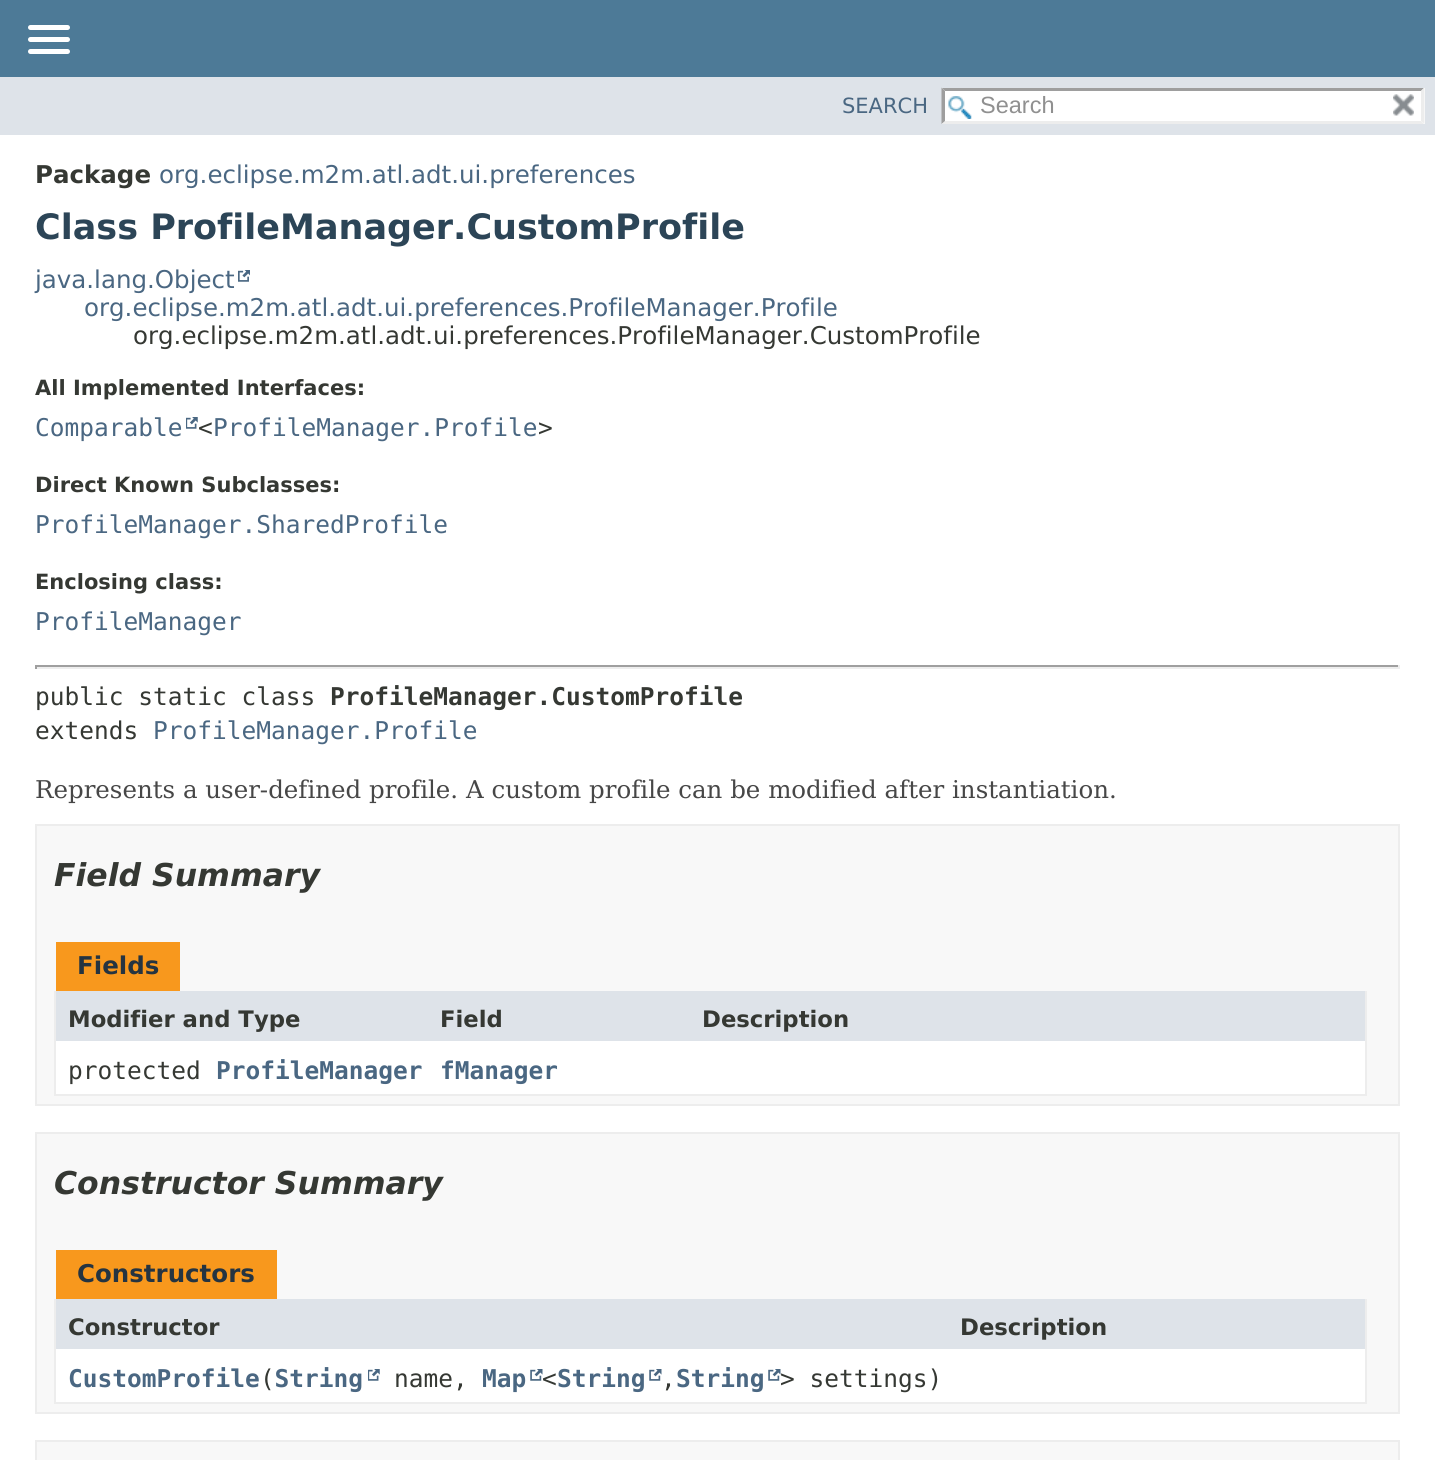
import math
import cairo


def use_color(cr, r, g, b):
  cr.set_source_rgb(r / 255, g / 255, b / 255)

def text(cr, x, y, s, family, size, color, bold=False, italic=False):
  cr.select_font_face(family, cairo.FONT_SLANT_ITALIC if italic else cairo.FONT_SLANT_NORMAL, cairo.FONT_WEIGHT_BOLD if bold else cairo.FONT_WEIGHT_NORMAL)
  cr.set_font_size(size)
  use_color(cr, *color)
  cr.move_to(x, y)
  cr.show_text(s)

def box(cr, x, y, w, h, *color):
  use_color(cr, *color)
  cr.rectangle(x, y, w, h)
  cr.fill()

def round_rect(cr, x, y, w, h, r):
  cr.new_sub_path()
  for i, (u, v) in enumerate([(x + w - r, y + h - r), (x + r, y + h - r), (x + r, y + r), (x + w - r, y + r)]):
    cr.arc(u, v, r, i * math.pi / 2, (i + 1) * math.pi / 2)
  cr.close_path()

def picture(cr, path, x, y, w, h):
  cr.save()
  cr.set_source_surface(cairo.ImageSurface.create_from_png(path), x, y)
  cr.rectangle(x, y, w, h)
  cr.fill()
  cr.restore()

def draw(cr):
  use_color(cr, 255, 255, 255)
  cr.paint()
  box(cr, 0, 0, 1435, 77, 77, 122, 151)
  use_color(cr, 255, 255, 255)
  round_rect(cr, 28, 25, 42, 5, 2.5)
  cr.fill()
  round_rect(cr, 28, 37, 42, 5, 2.5)
  cr.fill()
  round_rect(cr, 28, 49, 42, 5, 2.5)
  cr.fill()
  box(cr, 0, 77, 1435, 58, 222, 227, 233)
  box(cr, 942, 88, 483, 36, 255, 255, 255)
  picture(cr, "img_01.png", 948, 96, 24, 23)
  use_color(cr, 158, 158, 158)
  cr.new_path()
  cr.move_to(942, 88)
  cr.line_to(1424, 88)
  cr.line_to(1421, 91)
  cr.line_to(945, 91)
  cr.close_path()
  cr.fill()
  use_color(cr, 237, 237, 237)
  cr.new_path()
  cr.move_to(1424.5, 87.5)
  cr.line_to(1424.5, 124)
  cr.line_to(1421, 121)
  cr.line_to(1421, 91)
  cr.close_path()
  cr.fill()
  cr.new_path()
  cr.move_to(1424, 124)
  cr.line_to(942, 124)
  cr.line_to(945, 121)
  cr.line_to(1421, 121)
  cr.close_path()
  cr.fill()
  use_color(cr, 158, 158, 158)
  cr.new_path()
  cr.move_to(941.5, 124)
  cr.line_to(941.5, 87.5)
  cr.line_to(945, 91)
  cr.line_to(945, 121)
  cr.close_path()
  cr.fill()
  picture(cr, "img_02.png", 1393, 94, 21, 22)
  picture(cr, "img_03.png", 238, 270, 12, 12)
  picture(cr, "img_04.png", 186, 417, 12, 12)
  box(cr, 35, 665, 1365, 2, 159, 159, 159)
  box(cr, 1398, 665, 2, 4, 238, 238, 238)
  box(cr, 35, 667, 1365, 2, 238, 238, 238)
  box(cr, 35, 665, 2, 4, 159, 159, 159)
  use_color(cr, 248, 248, 248)
  cr.rectangle(36, 825, 1363, 280)
  cr.fill_preserve()
  use_color(cr, 237, 237, 237)
  cr.stroke()
  box(cr, 56, 942, 124, 49, 248, 152, 29)
  box(cr, 1365, 991, 2, 105, 237, 237, 237)
  box(cr, 54, 1094, 1313, 2, 237, 237, 237)
  box(cr, 54, 991, 2, 105, 237, 237, 237)
  box(cr, 56, 991, 1309, 50, 222, 227, 233)
  box(cr, 56, 1041, 1309, 53, 255, 255, 255)
  use_color(cr, 248, 248, 248)
  cr.rectangle(36, 1133, 1363, 280)
  cr.fill_preserve()
  use_color(cr, 237, 237, 237)
  cr.stroke()
  box(cr, 56, 1250, 221, 49, 248, 152, 29)
  box(cr, 1365, 1299, 2, 105, 237, 237, 237)
  box(cr, 54, 1402, 1313, 2, 237, 237, 237)
  box(cr, 54, 1299, 2, 105, 237, 237, 237)
  box(cr, 56, 1299, 1309, 50, 222, 227, 233)
  box(cr, 56, 1349, 1309, 53, 255, 255, 255)
  picture(cr, "img_05.png", 649, 1369, 13, 12)
  picture(cr, "img_05.png", 768, 1369, 13, 12)
  picture(cr, "img_04.png", 368, 1369, 12, 12)
  picture(cr, "img_05.png", 530, 1369, 13, 12)
  use_color(cr, 248, 248, 248)
  cr.rectangle(36, 1441, 1363, 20)
  cr.fill_preserve()
  use_color(cr, 237, 237, 237)
  cr.stroke()
  text(cr, 842, 113, "SEARCH", "DejaVu Sans", 21, (74, 103, 130))
  text(cr, 980, 113, "Search", "Liberation Sans", 23.5, (144, 144, 144))
  text(cr, 35, 183, "Package", "DejaVu Sans", 24.5, (53, 56, 51), bold=True)
  text(cr, 159, 183, "org.eclipse.m2m.atl.adt.ui.preferences", "DejaVu Sans", 24.5, (74, 103, 130))
  text(cr, 35, 239, "Class ProfileManager.CustomProfile", "DejaVu Sans", 35, (44, 69, 87), bold=True)
  text(cr, 35, 288, "java.lang.Object", "DejaVu Sans", 24.5, (74, 103, 130))
  text(cr, 84, 316, "org.eclipse.m2m.atl.adt.ui.preferences.ProfileManager.Profile", "DejaVu Sans", 24.5, (74, 103, 130))
  text(cr, 133, 344, "org.eclipse.m2m.atl.adt.ui.preferences.ProfileManager.CustomProfile", "DejaVu Sans", 24.5, (53, 56, 51))
  text(cr, 35, 395, "All Implemented Interfaces:", "DejaVu Sans", 21, (53, 56, 51), bold=True)
  text(cr, 35, 436, "Comparable", "DejaVu Sans Mono", 24.5, (74, 103, 130))
  text(cr, 198, 436, "<", "DejaVu Sans Mono", 24.5, (53, 56, 51))
  text(cr, 213, 436, "ProfileManager.Profile", "DejaVu Sans Mono", 24.5, (74, 103, 130))
  text(cr, 538, 436, ">", "DejaVu Sans Mono", 24.5, (53, 56, 51))
  text(cr, 35, 492, "Direct Known Subclasses:", "DejaVu Sans", 21, (53, 56, 51), bold=True)
  text(cr, 35, 533, "ProfileManager.SharedProfile", "DejaVu Sans Mono", 24.5, (74, 103, 130))
  text(cr, 35, 589, "Enclosing class:", "DejaVu Sans", 21, (53, 56, 51), bold=True)
  text(cr, 35, 630, "ProfileManager", "DejaVu Sans Mono", 24.5, (74, 103, 130))
  text(cr, 35, 705, "public static class", "DejaVu Sans Mono", 24.5, (53, 56, 51))
  text(cr, 330, 705, "ProfileManager.CustomProfile", "DejaVu Sans Mono", 24.5, (53, 56, 51), bold=True)
  text(cr, 35, 739, "extends", "DejaVu Sans Mono", 24.5, (53, 56, 51))
  text(cr, 153, 739, "ProfileManager.Profile", "DejaVu Sans Mono", 24.5, (74, 103, 130))
  text(cr, 35, 798, "Represents a user-defined profile. A custom profile can be modified after instantiation.", "DejaVu Serif", 24.5, (71, 71, 71))
  text(cr, 54, 886, "Field Summary", "DejaVu Sans", 31.5, (53, 56, 51), bold=True, italic=True)
  text(cr, 77, 974, "Fields", "DejaVu Sans", 24.5, (37, 52, 65), bold=True)
  text(cr, 68, 1027, "Modifier and Type", "DejaVu Sans", 22.75, (53, 56, 51), bold=True)
  text(cr, 440, 1027, "Field", "DejaVu Sans", 22.75, (53, 56, 51), bold=True)
  text(cr, 702, 1027, "Description", "DejaVu Sans", 22.75, (53, 56, 51), bold=True)
  text(cr, 68, 1079, "protected", "DejaVu Sans Mono", 24.5, (53, 56, 51))
  text(cr, 216, 1079, "ProfileManager", "DejaVu Sans Mono", 24.5, (74, 103, 130), bold=True)
  text(cr, 440, 1079, "fManager", "DejaVu Sans Mono", 24.5, (74, 103, 130), bold=True)
  text(cr, 54, 1194, "Constructor Summary", "DejaVu Sans", 31.5, (53, 56, 51), bold=True, italic=True)
  text(cr, 77, 1282, "Constructors", "DejaVu Sans", 24.5, (37, 52, 65), bold=True)
  text(cr, 68, 1335, "Constructor", "DejaVu Sans", 22.75, (53, 56, 51), bold=True)
  text(cr, 960, 1335, "Description", "DejaVu Sans", 22.75, (53, 56, 51), bold=True)
  text(cr, 68, 1387, "CustomProfile String", "DejaVu Sans Mono", 24.5, (74, 103, 130), bold=True)
  text(cr, 557, 1387, "String", "DejaVu Sans Mono", 24.5, (74, 103, 130), bold=True)
  text(cr, 676, 1387, "String", "DejaVu Sans Mono", 24.5, (74, 103, 130), bold=True)
  text(cr, 260, 1387, "(", "DejaVu Sans Mono", 24.5, (53, 56, 51))
  text(cr, 394, 1387, "name,", "DejaVu Sans Mono", 24.5, (53, 56, 51))
  text(cr, 482, 1387, "Map", "DejaVu Sans Mono", 24.5, (74, 103, 130), bold=True)
  text(cr, 542, 1387, "<", "DejaVu Sans Mono", 24.5, (53, 56, 51))
  text(cr, 780, 1387, "> settings)", "DejaVu Sans Mono", 24.5, (53, 56, 51))
  text(cr, 661, 1387, ",", "DejaVu Sans Mono", 24.5, (53, 56, 51))


surface = cairo.ImageSurface(cairo.FORMAT_RGB24, 1435, 1460)
cr = cairo.Context(surface)
options = cairo.FontOptions()
options.set_hint_metrics(cairo.HINT_METRICS_OFF)
options.set_hint_style(cairo.HINT_STYLE_NONE)
cr.set_font_options(options)
cr.set_miter_limit(4)
draw(cr)
surface.write_to_png("out.png")
